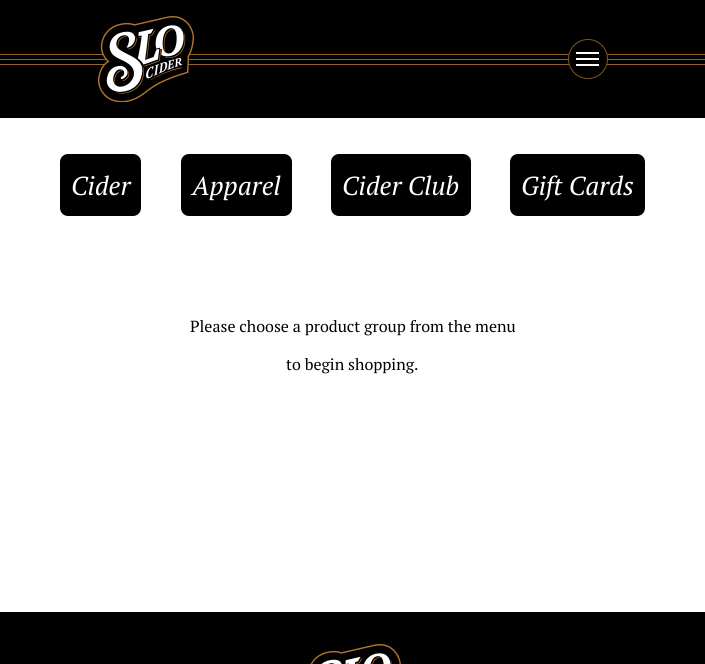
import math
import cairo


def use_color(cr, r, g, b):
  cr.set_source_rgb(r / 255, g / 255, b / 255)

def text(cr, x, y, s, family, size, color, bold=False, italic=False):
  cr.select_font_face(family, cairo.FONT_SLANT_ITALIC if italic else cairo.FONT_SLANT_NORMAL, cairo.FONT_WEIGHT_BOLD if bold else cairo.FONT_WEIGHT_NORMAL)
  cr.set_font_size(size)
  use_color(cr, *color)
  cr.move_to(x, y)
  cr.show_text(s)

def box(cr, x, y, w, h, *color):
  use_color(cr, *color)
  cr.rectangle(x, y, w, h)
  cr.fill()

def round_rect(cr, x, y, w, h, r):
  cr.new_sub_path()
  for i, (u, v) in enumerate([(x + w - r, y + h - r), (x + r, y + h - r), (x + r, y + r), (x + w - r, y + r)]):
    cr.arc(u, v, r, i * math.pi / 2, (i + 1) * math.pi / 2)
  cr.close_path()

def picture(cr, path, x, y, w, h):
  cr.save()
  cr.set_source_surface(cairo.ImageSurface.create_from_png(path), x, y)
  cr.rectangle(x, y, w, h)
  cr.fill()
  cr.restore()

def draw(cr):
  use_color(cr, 255, 255, 255)
  cr.paint()
  box(cr, 0, 0, 705, 118, 0, 0, 0)
  picture(cr, "img_01.png", 0, 54, 705, 11)
  picture(cr, "img_02.png", 98, 16, 96, 86)
  cr.arc(588, 59, 19.5, 0, 2 * math.pi)
  cr.fill_preserve()
  use_color(cr, 128, 86, 31)
  cr.set_line_width(1)
  cr.stroke()
  box(cr, 576, 58, 23, 2, 255, 255, 255)
  box(cr, 576, 52, 23, 2, 255, 255, 255)
  box(cr, 576, 64, 23, 2, 255, 255, 255)
  use_color(cr, 0, 0, 0)
  round_rect(cr, 60, 154, 81, 62, 8)
  cr.fill()
  round_rect(cr, 181, 154, 111, 62, 8)
  cr.fill()
  round_rect(cr, 331, 154, 140, 62, 8)
  cr.fill()
  round_rect(cr, 510, 154, 135, 62, 8)
  cr.fill()
  box(cr, 0, 612, 705, 52, 0, 0, 0)
  picture(cr, "img_03.png", 310, 644, 91, 20)
  text(cr, 71, 195, "Cider", "PT Serif", 26, (255, 255, 255), italic=True)
  text(cr, 192, 195, "Apparel", "PT Serif", 26, (255, 255, 255), italic=True)
  text(cr, 342, 195, "Cider Club", "PT Serif", 26, (255, 255, 255), italic=True)
  text(cr, 521, 195, "Gift Cards", "PT Serif", 26, (255, 255, 255), italic=True)
  text(cr, 190, 332, "Please choose a product group from the menu", "PT Serif", 16, (0, 0, 0))
  text(cr, 286, 370, "to begin shopping.", "PT Serif", 16, (0, 0, 0))


surface = cairo.ImageSurface(cairo.FORMAT_RGB24, 705, 664)
cr = cairo.Context(surface)
options = cairo.FontOptions()
options.set_hint_metrics(cairo.HINT_METRICS_OFF)
options.set_hint_style(cairo.HINT_STYLE_NONE)
cr.set_font_options(options)
cr.set_miter_limit(4)
draw(cr)
surface.write_to_png("out.png")
